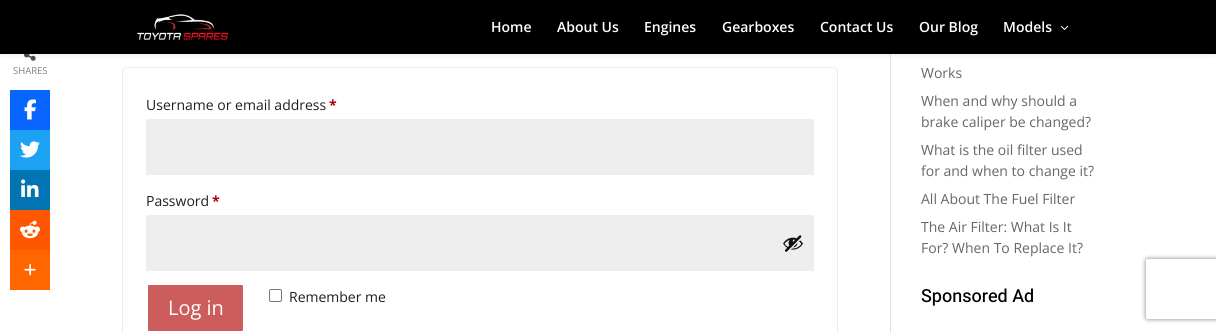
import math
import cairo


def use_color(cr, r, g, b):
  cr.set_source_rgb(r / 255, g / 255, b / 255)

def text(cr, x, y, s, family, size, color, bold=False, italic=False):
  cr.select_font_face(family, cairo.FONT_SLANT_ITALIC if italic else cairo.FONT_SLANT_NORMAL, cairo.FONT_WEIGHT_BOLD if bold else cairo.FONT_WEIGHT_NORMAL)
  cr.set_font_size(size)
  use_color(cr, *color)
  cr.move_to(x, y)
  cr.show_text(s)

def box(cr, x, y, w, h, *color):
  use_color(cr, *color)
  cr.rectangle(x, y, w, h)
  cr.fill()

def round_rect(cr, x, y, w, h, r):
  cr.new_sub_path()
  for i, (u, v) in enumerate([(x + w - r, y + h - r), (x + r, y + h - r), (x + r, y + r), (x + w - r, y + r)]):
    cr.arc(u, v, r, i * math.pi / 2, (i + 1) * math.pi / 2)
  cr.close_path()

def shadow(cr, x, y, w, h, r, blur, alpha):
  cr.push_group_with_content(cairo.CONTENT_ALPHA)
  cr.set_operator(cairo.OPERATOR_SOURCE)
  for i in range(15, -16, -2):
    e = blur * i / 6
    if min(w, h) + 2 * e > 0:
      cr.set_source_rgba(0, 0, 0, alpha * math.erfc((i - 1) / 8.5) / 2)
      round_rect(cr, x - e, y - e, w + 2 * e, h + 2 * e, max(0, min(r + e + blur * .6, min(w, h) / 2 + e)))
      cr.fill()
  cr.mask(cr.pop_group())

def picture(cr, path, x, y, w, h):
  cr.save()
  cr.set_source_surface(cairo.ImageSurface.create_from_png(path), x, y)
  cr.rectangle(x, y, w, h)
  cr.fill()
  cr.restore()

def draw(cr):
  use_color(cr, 255, 255, 255)
  cr.paint()
  box(cr, 890, 54, 1, 279, 226, 226, 226)
  use_color(cr, 0, 0, 0)
  shadow(cr, 0, 0, 1216, 54, 0, 3.5, 0.1)
  picture(cr, "img_01.png", 24, 54, 12, 7)
  box(cr, 10, 90, 40, 40, 8, 102, 255)
  picture(cr, "img_02.png", 24, 99, 12, 21)
  box(cr, 10, 130, 40, 40, 29, 161, 242)
  picture(cr, "img_03.png", 20, 141, 20, 17)
  box(cr, 10, 170, 40, 40, 2, 116, 179)
  picture(cr, "img_04.png", 21, 179, 18, 18)
  box(cr, 10, 210, 40, 40, 255, 86, 0)
  picture(cr, "img_05.png", 20, 220, 20, 19)
  box(cr, 10, 250, 40, 40, 255, 101, 0)
  picture(cr, "img_06.png", 24, 264, 12, 12)
  box(cr, 0, 0, 1216, 54, 0, 0, 0)
  picture(cr, "img_07.png", 137, 14, 92, 26)
  picture(cr, "img_08.png", 1060, 25, 9, 5)
  round_rect(cr, 122.5, 67.5, 715, 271, 4.5)
  use_color(cr, 238, 238, 238)
  cr.set_line_width(1)
  cr.stroke()
  box(cr, 146, 119, 668, 56, 238, 238, 238)
  box(cr, 146, 215, 668, 56, 238, 238, 238)
  picture(cr, "img_09.png", 783, 235, 20, 17)
  round_rect(cr, 269.5, 289.5, 12, 12, 1.5)
  use_color(cr, 118, 118, 118)
  cr.stroke()
  use_color(cr, 205, 92, 92)
  round_rect(cr, 147, 284, 97, 48, 2)
  cr.fill_preserve()
  use_color(cr, 255, 255, 255)
  cr.set_line_width(2)
  cr.stroke()
  cr.save()
  cr.set_fill_rule(cairo.FILL_RULE_EVEN_ODD)
  cr.new_path()
  cr.move_to(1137, 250)
  cr.line_to(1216, 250)
  cr.line_to(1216, 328)
  cr.line_to(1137, 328)
  cr.close_path()
  cr.move_to(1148, 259)
  cr.line_to(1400, 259)
  cr.curve_to(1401, 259, 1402, 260, 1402, 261)
  cr.line_to(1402, 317)
  cr.curve_to(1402, 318, 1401, 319, 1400, 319)
  cr.line_to(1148, 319)
  cr.curve_to(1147, 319, 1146, 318, 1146, 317)
  cr.line_to(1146, 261)
  cr.curve_to(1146, 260, 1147, 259, 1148, 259)
  cr.close_path()
  cr.clip()
  use_color(cr, 128, 128, 128)
  shadow(cr, 1146, 259, 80, 60, 2, 2.5, 1)
  cr.restore()
  text(cr, 13, 74, "SHARES", "Open Sans", 9.5, (128, 128, 128))
  text(cr, 491, 32, "Home", "Open Sans SemiBold", 14, (255, 255, 255))
  text(cr, 557, 32, "About Us", "Open Sans SemiBold", 14, (255, 255, 255))
  text(cr, 644, 32, "Engines", "Open Sans SemiBold", 14, (255, 255, 255))
  text(cr, 722, 32, "Gearboxes", "Open Sans SemiBold", 14, (255, 255, 255))
  text(cr, 820, 32, "Contact Us", "Open Sans SemiBold", 14, (255, 255, 255))
  text(cr, 919, 32, "Our Blog", "Open Sans SemiBold", 14, (255, 255, 255))
  text(cr, 1003, 32, "Models", "Open Sans SemiBold", 14, (255, 255, 255))
  text(cr, 146, 110, "Username or email address", "Open Sans", 14, (30, 30, 30))
  text(cr, 329, 110, "*", "Open Sans", 14, (170, 0, 0), bold=True)
  text(cr, 146, 206, "Password", "Open Sans", 14, (30, 30, 30))
  text(cr, 212, 206, "*", "Open Sans", 14, (170, 0, 0), bold=True)
  text(cr, 289, 302, "Remember me", "Open Sans", 14, (30, 30, 30))
  text(cr, 168, 315, "Log in", "Open Sans", 20, (255, 255, 255))
  text(cr, 921, 78, "Works", "Open Sans", 14, (102, 102, 102))
  text(cr, 921, 106, "When and why should a", "Open Sans", 14, (102, 102, 102))
  text(cr, 921, 127, "brake caliper be changed?", "Open Sans", 14, (102, 102, 102))
  text(cr, 921, 155, "What is the oil filter used", "Open Sans", 14, (102, 102, 102))
  text(cr, 921, 176, "for and when to change it?", "Open Sans", 14, (102, 102, 102))
  text(cr, 921, 204, "All About The Fuel Filter", "Open Sans", 14, (102, 102, 102))
  text(cr, 921, 232, "The Air Filter: What Is It", "Open Sans", 14, (102, 102, 102))
  text(cr, 921, 253, "For? When To Replace It?", "Open Sans", 14, (102, 102, 102))
  text(cr, 921, 302, "Sponsored Ad", "Heebo Medium", 18, (0, 0, 0))


surface = cairo.ImageSurface(cairo.FORMAT_RGB24, 1216, 333)
cr = cairo.Context(surface)
options = cairo.FontOptions()
options.set_hint_metrics(cairo.HINT_METRICS_OFF)
options.set_hint_style(cairo.HINT_STYLE_NONE)
cr.set_font_options(options)
cr.set_miter_limit(4)
draw(cr)
surface.write_to_png("out.png")
